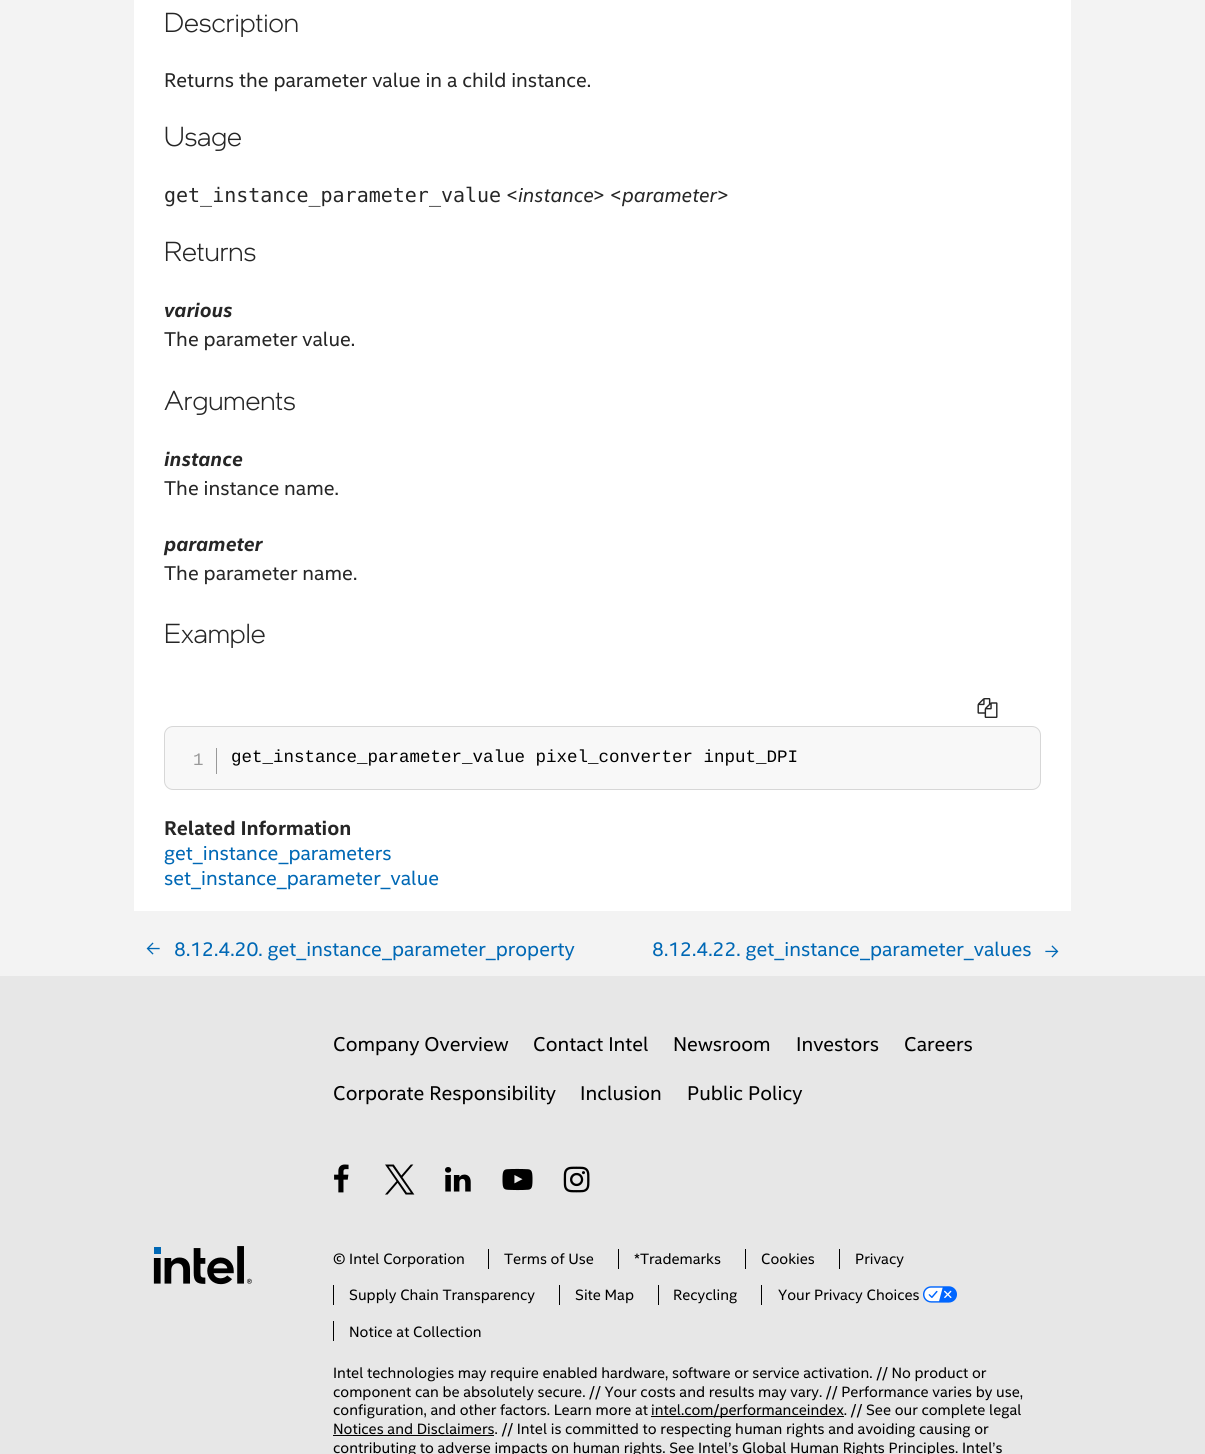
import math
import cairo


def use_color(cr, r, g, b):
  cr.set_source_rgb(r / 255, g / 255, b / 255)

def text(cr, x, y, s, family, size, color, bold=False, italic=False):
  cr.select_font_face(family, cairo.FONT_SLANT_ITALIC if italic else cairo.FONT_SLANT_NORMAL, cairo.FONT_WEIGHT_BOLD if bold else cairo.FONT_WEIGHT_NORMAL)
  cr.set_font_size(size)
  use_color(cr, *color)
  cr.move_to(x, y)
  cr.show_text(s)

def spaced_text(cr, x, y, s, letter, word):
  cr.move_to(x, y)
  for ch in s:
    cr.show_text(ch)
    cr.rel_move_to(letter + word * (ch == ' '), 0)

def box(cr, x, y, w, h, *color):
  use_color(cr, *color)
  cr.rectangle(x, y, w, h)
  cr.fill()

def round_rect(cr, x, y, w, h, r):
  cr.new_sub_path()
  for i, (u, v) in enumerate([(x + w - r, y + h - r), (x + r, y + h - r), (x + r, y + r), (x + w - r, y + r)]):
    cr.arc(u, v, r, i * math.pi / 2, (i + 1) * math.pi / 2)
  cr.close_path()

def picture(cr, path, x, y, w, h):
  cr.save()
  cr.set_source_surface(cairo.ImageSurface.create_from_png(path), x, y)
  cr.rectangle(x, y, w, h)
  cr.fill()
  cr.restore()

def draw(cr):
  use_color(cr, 243, 243, 243)
  cr.paint()
  box(cr, 134, 0, 937, 911, 255, 255, 255)
  picture(cr, "img_01.png", 977, 698, 21, 20)
  use_color(cr, 248, 248, 248)
  round_rect(cr, 164.5, 726.5, 876, 63, 8.5)
  cr.fill_preserve()
  use_color(cr, 215, 215, 215)
  cr.set_line_width(1)
  cr.stroke()
  box(cr, 216, 748, 1, 26, 153, 153, 153)
  picture(cr, "img_02.png", 146, 942, 14, 13)
  picture(cr, "img_03.png", 1045, 945, 14, 13)
  box(cr, 0, 976, 1205, 478, 231, 231, 231)
  picture(cr, "img_04.png", 153, 1246, 99, 39)
  picture(cr, "img_05.png", 334, 1164, 15, 29)
  picture(cr, "img_06.png", 385, 1164, 30, 31)
  picture(cr, "img_07.png", 445, 1167, 26, 25)
  picture(cr, "img_08.png", 502, 1168, 31, 23)
  picture(cr, "img_09.png", 563, 1166, 27, 27)
  box(cr, 488, 1249, 1, 20, 0, 0, 0)
  box(cr, 618, 1249, 1, 20, 0, 0, 0)
  box(cr, 745, 1249, 1, 20, 0, 0, 0)
  box(cr, 839, 1249, 1, 20, 0, 0, 0)
  box(cr, 333, 1285, 1, 20, 0, 0, 0)
  box(cr, 559, 1285, 1, 20, 0, 0, 0)
  box(cr, 658, 1285, 1, 20, 0, 0, 0)
  box(cr, 761, 1285, 1, 20, 0, 0, 0)
  picture(cr, "img_10.png", 923, 1286, 34, 17)
  box(cr, 333, 1321, 1, 20, 0, 0, 0)
  box(cr, 651, 1416, 193, 1, 0, 0, 0)
  box(cr, 333, 1435, 161, 1, 0, 0, 0)
  text(cr, 164, 32, "Description", "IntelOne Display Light", 27.5, (38, 38, 38))
  text(cr, 164, 87, "Returns the parameter value in a child instance.", "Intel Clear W", 20, (38, 38, 38))
  text(cr, 164, 146, "Usage", "IntelOne Display Light", 27.5, (38, 38, 38))
  text(cr, 164, 202, "get_instance_parameter_value", "DejaVu Sans Mono", 20, (38, 38, 38))
  text(cr, 506, 202, "<", "Intel Clear W", 20, (38, 38, 38))
  text(cr, 518, 202, "instance", "Intel Clear W", 20, (38, 38, 38), italic=True)
  text(cr, 593, 202, "> <", "Intel Clear W", 20, (38, 38, 38))
  text(cr, 622, 202, "parameter", "Intel Clear W", 20, (38, 38, 38), italic=True)
  text(cr, 717, 202, ">", "Intel Clear W", 20, (38, 38, 38))
  text(cr, 164, 261, "Returns", "IntelOne Display Light", 27.5, (38, 38, 38))
  text(cr, 164, 317, "various", "Intel Clear W", 20, (38, 38, 38), bold=True, italic=True)
  text(cr, 164, 346, "The parameter value.", "Intel Clear W", 20, (38, 38, 38))
  text(cr, 164, 410, "Arguments", "IntelOne Display Light", 27.5, (38, 38, 38))
  text(cr, 164, 466, "instance", "Intel Clear W", 20, (38, 38, 38), bold=True, italic=True)
  text(cr, 164, 495, "The instance name.", "Intel Clear W", 20, (38, 38, 38))
  text(cr, 164, 551, "parameter", "Intel Clear W", 20, (38, 38, 38), bold=True, italic=True)
  text(cr, 164, 580, "The parameter name.", "Intel Clear W", 20, (38, 38, 38))
  text(cr, 164, 643, "Example", "IntelOne Display Light", 27.5, (38, 38, 38))
  cr.select_font_face("Liberation Mono")
  cr.set_font_size(17.5)
  use_color(cr, 153, 153, 153)
  spaced_text(cr, 193, 765, "1", -1, 0)
  text(cr, 231, 762, "get_instance_parameter_value pixel_converter input_DPI", "Liberation Mono", 17.5, (0, 0, 0))
  text(cr, 164, 835, "Related Information", "Intel Clear W", 20, (38, 38, 38), bold=True)
  text(cr, 164, 860, "get_instance_parameters", "Intel Clear W", 20, (0, 104, 181))
  text(cr, 164, 885, "set_instance_parameter_value", "Intel Clear W", 20, (0, 104, 181))
  text(cr, 174, 956, "8.12.4.20. get_instance_parameter_property", "Intel Clear W", 20, (0, 104, 181))
  text(cr, 652, 956, "8.12.4.22. get_instance_parameter_values", "Intel Clear W", 20, (0, 104, 181))
  text(cr, 333, 1051, "Company Overview", "Intel Clear W", 20, (0, 0, 0))
  text(cr, 533, 1051, "Contact Intel", "Intel Clear W", 20, (0, 0, 0))
  text(cr, 673, 1051, "Newsroom", "Intel Clear W", 20, (0, 0, 0))
  text(cr, 796, 1051, "Investors", "Intel Clear W", 20, (0, 0, 0))
  text(cr, 904, 1051, "Careers", "Intel Clear W", 20, (0, 0, 0))
  text(cr, 333, 1100, "Corporate Responsibility", "Intel Clear W", 20, (0, 0, 0))
  text(cr, 580, 1100, "Inclusion", "Intel Clear W", 20, (0, 0, 0))
  text(cr, 687, 1100, "Public Policy", "Intel Clear W", 20, (0, 0, 0))
  text(cr, 333, 1264, "© Intel Corporation", "Intel Clear W", 15, (0, 0, 0))
  text(cr, 504, 1264, "Terms of Use", "Intel Clear W", 15, (0, 0, 0))
  text(cr, 634, 1264, "*Trademarks", "Intel Clear W", 15, (0, 0, 0))
  text(cr, 761, 1264, "Cookies", "Intel Clear W", 15, (0, 0, 0))
  text(cr, 855, 1264, "Privacy", "Intel Clear W", 15, (0, 0, 0))
  text(cr, 349, 1300, "Supply Chain Transparency", "Intel Clear W", 15, (0, 0, 0))
  text(cr, 575, 1300, "Site Map", "Intel Clear W", 15, (0, 0, 0))
  text(cr, 673, 1300, "Recycling", "Intel Clear W", 15, (0, 0, 0))
  text(cr, 778, 1300, "Your Privacy Choices", "Intel Clear W", 15, (0, 0, 0))
  text(cr, 349, 1337, "Notice at Collection", "Intel Clear W", 15, (0, 0, 0))
  text(cr, 333, 1378, "Intel technologies may require enabled hardware, software or service activation. // No product or", "Intel Clear W", 15, (0, 0, 0))
  text(cr, 333, 1397, "component can be absolutely secure. // Your costs and results may vary. // Performance varies by use,", "Intel Clear W", 15, (0, 0, 0))
  text(cr, 333, 1415, "configuration, and other factors. Learn more at", "Intel Clear W", 15, (0, 0, 0))
  text(cr, 651, 1415, "intel.com/performanceindex. // See our complete legal", "Intel Clear W", 15, (0, 0, 0))
  text(cr, 333, 1434, "Notices and Disclaimers. // Intel is committed to respecting human rights and avoiding causing or", "Intel Clear W", 15, (0, 0, 0))
  text(cr, 333, 1453, "contributing to adverse impacts on human rights. See Intel’s Global Human Rights Principles. Intel’s", "Intel Clear W", 15, (0, 0, 0))


surface = cairo.ImageSurface(cairo.FORMAT_RGB24, 1205, 1454)
cr = cairo.Context(surface)
options = cairo.FontOptions()
options.set_hint_metrics(cairo.HINT_METRICS_OFF)
options.set_hint_style(cairo.HINT_STYLE_NONE)
cr.set_font_options(options)
cr.set_miter_limit(4)
draw(cr)
surface.write_to_png("out.png")
